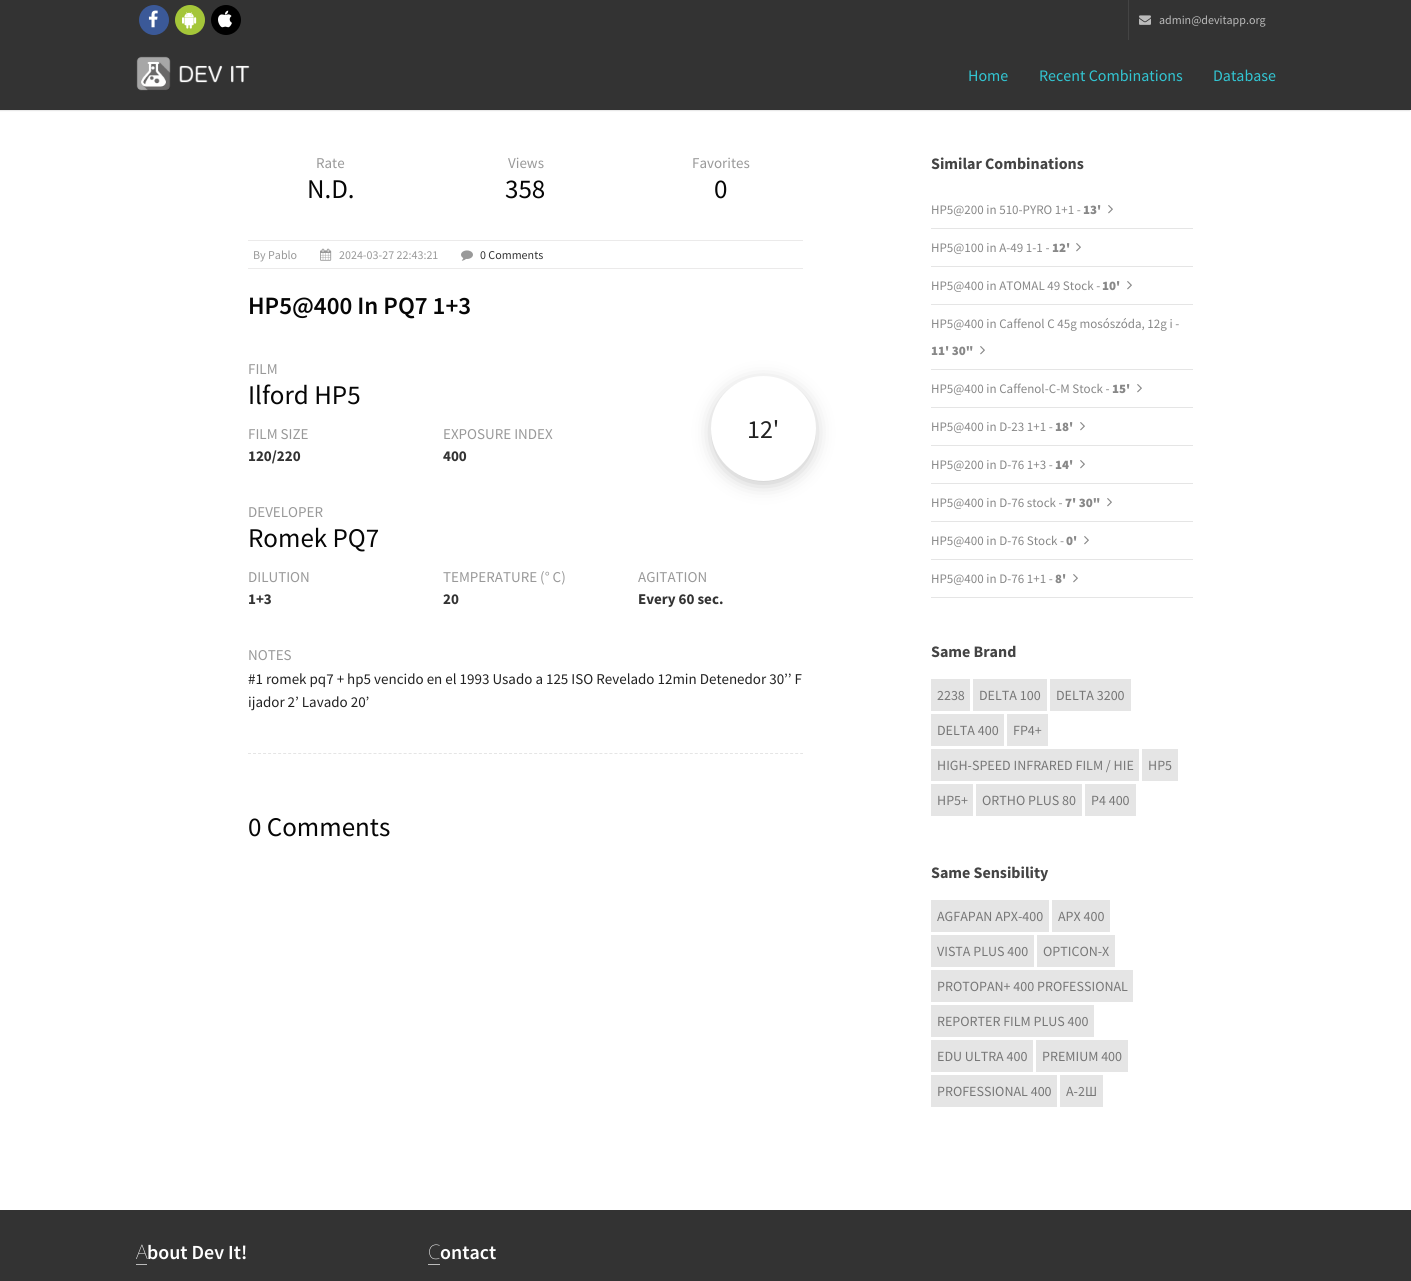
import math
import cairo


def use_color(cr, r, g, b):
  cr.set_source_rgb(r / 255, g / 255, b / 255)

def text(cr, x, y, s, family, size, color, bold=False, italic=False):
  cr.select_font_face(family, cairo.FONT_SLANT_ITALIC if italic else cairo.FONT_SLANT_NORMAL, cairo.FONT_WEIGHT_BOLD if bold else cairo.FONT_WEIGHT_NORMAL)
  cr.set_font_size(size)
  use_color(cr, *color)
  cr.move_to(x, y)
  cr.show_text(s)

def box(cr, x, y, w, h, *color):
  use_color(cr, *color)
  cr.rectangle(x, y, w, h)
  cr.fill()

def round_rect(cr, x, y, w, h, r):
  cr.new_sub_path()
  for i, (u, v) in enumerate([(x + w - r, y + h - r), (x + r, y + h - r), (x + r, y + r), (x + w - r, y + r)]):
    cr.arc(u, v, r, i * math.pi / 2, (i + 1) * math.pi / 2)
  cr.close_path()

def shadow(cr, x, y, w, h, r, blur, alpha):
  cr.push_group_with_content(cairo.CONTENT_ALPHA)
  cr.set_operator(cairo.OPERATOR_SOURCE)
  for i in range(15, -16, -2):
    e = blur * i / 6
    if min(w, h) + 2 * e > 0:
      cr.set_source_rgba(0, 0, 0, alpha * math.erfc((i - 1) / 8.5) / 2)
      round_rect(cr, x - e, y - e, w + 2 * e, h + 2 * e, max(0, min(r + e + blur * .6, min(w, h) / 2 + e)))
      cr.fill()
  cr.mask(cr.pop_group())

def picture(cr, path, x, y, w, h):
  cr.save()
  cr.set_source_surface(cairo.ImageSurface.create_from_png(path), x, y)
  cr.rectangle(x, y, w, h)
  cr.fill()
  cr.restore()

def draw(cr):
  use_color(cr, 255, 255, 255)
  cr.paint()
  box(cr, 0, 0, 1411, 40, 51, 51, 51)
  use_color(cr, 59, 89, 152)
  cr.arc(154, 20, 15, 0, 2 * math.pi)
  cr.fill()
  picture(cr, "img_01.png", 148, 10, 10, 18)
  use_color(cr, 164, 198, 57)
  cr.arc(190, 20, 15, 0, 2 * math.pi)
  cr.fill()
  picture(cr, "img_02.png", 182, 12, 15, 17)
  use_color(cr, 0, 0, 0)
  cr.arc(226, 20, 15, 0, 2 * math.pi)
  cr.fill()
  picture(cr, "img_03.png", 218, 10, 14, 18)
  box(cr, 1128, 0, 1, 40, 68, 68, 68)
  picture(cr, "img_04.png", 1139, 15, 12, 10)
  use_color(cr, 0, 0, 0)
  shadow(cr, -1, 41, 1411, 70, 0, 0.5, 0.1)
  box(cr, 0, 40, 1411, 70, 51, 51, 51)
  picture(cr, "img_05.png", 136, 56, 35, 35)
  picture(cr, "img_06.png", 179, 65, 71, 18)
  cr.new_path()
  cr.move_to(248, 753.5)
  cr.line_to(803, 753.5)
  use_color(cr, 229, 229, 229)
  cr.set_line_width(1)
  cr.set_dash([3, 2.02])
  cr.stroke()
  box(cr, 248, 240, 555, 1, 235, 234, 234)
  box(cr, 248, 268, 555, 1, 235, 234, 234)
  picture(cr, "img_07.png", 320, 248, 12, 13)
  picture(cr, "img_08.png", 461, 250, 12, 11)
  use_color(cr, 170, 170, 170)
  shadow(cr, 716, 385, 95, 95, 47.5, 10, 1)
  use_color(cr, 255, 255, 255)
  cr.arc(763.5, 428.5, 52.5, 0, 2 * math.pi)
  cr.fill()
  box(cr, 931, 228, 262, 1, 229, 229, 229)
  picture(cr, "img_09.png", 1108, 205, 5, 9)
  box(cr, 931, 266, 262, 1, 229, 229, 229)
  picture(cr, "img_09.png", 1076, 243, 5, 9)
  box(cr, 931, 304, 262, 1, 229, 229, 229)
  picture(cr, "img_09.png", 1127, 281, 5, 9)
  box(cr, 931, 369, 262, 1, 229, 229, 229)
  picture(cr, "img_09.png", 980, 346, 5, 9)
  box(cr, 931, 407, 262, 1, 229, 229, 229)
  picture(cr, "img_09.png", 1137, 384, 5, 9)
  box(cr, 931, 445, 262, 1, 229, 229, 229)
  picture(cr, "img_09.png", 1080, 422, 5, 9)
  box(cr, 931, 483, 262, 1, 229, 229, 229)
  picture(cr, "img_09.png", 1080, 460, 5, 9)
  box(cr, 931, 521, 262, 1, 229, 229, 229)
  picture(cr, "img_09.png", 1107, 498, 5, 9)
  box(cr, 931, 559, 262, 1, 229, 229, 229)
  picture(cr, "img_09.png", 1084, 536, 5, 9)
  box(cr, 931, 597, 262, 1, 229, 229, 229)
  picture(cr, "img_09.png", 1073, 574, 5, 9)
  box(cr, 931, 679, 39, 32, 229, 229, 229)
  box(cr, 973, 679, 74, 32, 229, 229, 229)
  box(cr, 1050, 679, 81, 32, 229, 229, 229)
  box(cr, 931, 714, 73, 32, 229, 229, 229)
  box(cr, 1007, 714, 41, 32, 229, 229, 229)
  box(cr, 931, 749, 208, 32, 229, 229, 229)
  box(cr, 1142, 749, 36, 32, 229, 229, 229)
  box(cr, 931, 784, 42, 32, 229, 229, 229)
  box(cr, 976, 784, 106, 32, 229, 229, 229)
  box(cr, 1085, 784, 51, 32, 229, 229, 229)
  box(cr, 931, 900, 118, 32, 229, 229, 229)
  box(cr, 1052, 900, 58, 32, 229, 229, 229)
  box(cr, 931, 935, 103, 32, 229, 229, 229)
  box(cr, 1037, 935, 78, 32, 229, 229, 229)
  box(cr, 931, 970, 202, 32, 229, 229, 229)
  box(cr, 931, 1005, 163, 32, 229, 229, 229)
  box(cr, 931, 1040, 102, 32, 229, 229, 229)
  box(cr, 1036, 1040, 92, 32, 229, 229, 229)
  box(cr, 931, 1075, 126, 32, 229, 229, 229)
  box(cr, 1060, 1075, 43, 32, 229, 229, 229)
  box(cr, 0, 1210, 1411, 71, 51, 51, 51)
  box(cr, 136, 1264, 11, 1, 187, 187, 187)
  box(cr, 428, 1264, 12, 1, 187, 187, 187)
  text(cr, 1159, 24, "admin@devitapp.org", "Source Sans Pro", 12, (187, 187, 187))
  text(cr, 968, 81, "Home", "Source Sans Pro", 16, (50, 197, 210))
  text(cr, 1039, 81, "Recent Combinations", "Source Sans Pro", 16, (50, 197, 210))
  text(cr, 1213, 81, "Database", "Source Sans Pro", 16, (50, 197, 210))
  text(cr, 316, 168, "Rate", "Source Sans Pro", 15, (153, 153, 153))
  text(cr, 307, 198, "N.D.", "Source Sans Pro", 27, (6, 6, 6))
  text(cr, 508, 168, "Views", "Source Sans Pro", 15, (153, 153, 153))
  text(cr, 505, 198, "358", "Source Sans Pro", 27, (6, 6, 6))
  text(cr, 692, 168, "Favorites", "Source Sans Pro", 15, (153, 153, 153))
  text(cr, 714, 198, "0", "Source Sans Pro", 27, (6, 6, 6))
  text(cr, 253, 259, "By Pablo", "Source Sans Pro", 12, (153, 153, 153))
  text(cr, 339, 259, "2024-03-27 22:43:21", "Source Sans Pro", 12, (153, 153, 153))
  text(cr, 480, 259, "0 Comments", "Source Sans Pro", 12, (51, 51, 51))
  text(cr, 248, 314, "HP5@400 In PQ7 1+3", "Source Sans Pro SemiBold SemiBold", 25, (6, 6, 6))
  text(cr, 248, 374, "FILM", "Source Sans Pro", 15, (153, 153, 153))
  text(cr, 248, 404, "Ilford HP5", "Source Sans Pro", 27, (6, 6, 6))
  text(cr, 248, 439, "FILM SIZE", "Source Sans Pro", 15, (153, 153, 153))
  text(cr, 248, 461, "120/220", "Source Sans Pro", 15, (51, 51, 51), bold=True)
  text(cr, 443, 439, "EXPOSURE INDEX", "Source Sans Pro", 15, (153, 153, 153))
  text(cr, 443, 461, "400", "Source Sans Pro", 15, (51, 51, 51), bold=True)
  text(cr, 747, 438, "12'", "Source Sans Pro", 26, (34, 34, 34))
  text(cr, 248, 517, "DEVELOPER", "Source Sans Pro", 15, (153, 153, 153))
  text(cr, 248, 547, "Romek PQ7", "Source Sans Pro", 27, (6, 6, 6))
  text(cr, 248, 582, "DILUTION", "Source Sans Pro", 15, (153, 153, 153))
  text(cr, 248, 604, "1+3", "Source Sans Pro", 15, (51, 51, 51), bold=True)
  text(cr, 443, 582, "TEMPERATURE (° C)", "Source Sans Pro", 15, (153, 153, 153))
  text(cr, 443, 604, "20", "Source Sans Pro", 15, (51, 51, 51), bold=True)
  text(cr, 638, 582, "AGITATION", "Source Sans Pro", 15, (153, 153, 153))
  text(cr, 638, 604, "Every 60 sec.", "Source Sans Pro", 15, (51, 51, 51), bold=True)
  text(cr, 248, 660, "NOTES", "Source Sans Pro", 15, (153, 153, 153))
  text(cr, 248, 684, "#1 romek pq7 + hp5 vencido en el 1993 Usado a 125 ISO Revelado 12min Detenedor 30’’ F", "Source Sans Pro", 15, (34, 34, 34))
  text(cr, 248, 707, "ijador 2’ Lavado 20’", "Source Sans Pro", 15, (34, 34, 34))
  text(cr, 248, 836, "0 Comments", "Source Sans Pro", 27, (6, 6, 6))
  text(cr, 931, 169, "Similar Combinations", "Source Sans Pro", 16, (68, 68, 68), bold=True)
  text(cr, 931, 214, "HP5@200 in 510-PYRO 1+1 -", "Source Sans Pro", 13, (136, 136, 136))
  text(cr, 1083, 214, "13'", "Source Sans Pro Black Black", 13, (136, 136, 136))
  text(cr, 931, 252, "HP5@100 in A-49 1-1 -", "Source Sans Pro", 13, (136, 136, 136))
  text(cr, 1052, 252, "12'", "Source Sans Pro Black Black", 13, (136, 136, 136))
  text(cr, 931, 290, "HP5@400 in ATOMAL 49 Stock -", "Source Sans Pro", 13, (136, 136, 136))
  text(cr, 1102, 290, "10'", "Source Sans Pro Black Black", 13, (136, 136, 136))
  text(cr, 931, 328, "HP5@400 in Caffenol C 45g mosószóda, 12g i -", "Source Sans Pro", 13, (136, 136, 136))
  text(cr, 931, 355, "11' 30\"", "Source Sans Pro Black Black", 13, (136, 136, 136))
  text(cr, 931, 393, "HP5@400 in Caffenol-C-M Stock -", "Source Sans Pro", 13, (136, 136, 136))
  text(cr, 1112, 393, "15'", "Source Sans Pro Black Black", 13, (136, 136, 136))
  text(cr, 931, 431, "HP5@400 in D-23 1+1 -", "Source Sans Pro", 13, (136, 136, 136))
  text(cr, 1055, 431, "18'", "Source Sans Pro Black Black", 13, (136, 136, 136))
  text(cr, 931, 469, "HP5@200 in D-76 1+3 -", "Source Sans Pro", 13, (136, 136, 136))
  text(cr, 1055, 469, "14'", "Source Sans Pro Black Black", 13, (136, 136, 136))
  text(cr, 931, 507, "HP5@400 in D-76 stock -", "Source Sans Pro", 13, (136, 136, 136))
  text(cr, 1065, 507, "7' 30\"", "Source Sans Pro Black Black", 13, (136, 136, 136))
  text(cr, 931, 545, "HP5@400 in D-76 Stock -", "Source Sans Pro", 13, (136, 136, 136))
  text(cr, 1066, 545, "0'", "Source Sans Pro Black Black", 13, (136, 136, 136))
  text(cr, 931, 583, "HP5@400 in D-76 1+1 -", "Source Sans Pro", 13, (136, 136, 136))
  text(cr, 1055, 583, "8'", "Source Sans Pro Black Black", 13, (136, 136, 136))
  text(cr, 931, 657, "Same Brand", "Source Sans Pro", 16, (68, 68, 68), bold=True)
  text(cr, 937, 700, "2238", "Source Sans Pro", 14, (119, 119, 119))
  text(cr, 979, 700, "DELTA 100", "Source Sans Pro", 14, (119, 119, 119))
  text(cr, 1056, 700, "DELTA 3200", "Source Sans Pro", 14, (119, 119, 119))
  text(cr, 937, 735, "DELTA 400", "Source Sans Pro", 14, (119, 119, 119))
  text(cr, 1013, 735, "FP4+", "Source Sans Pro", 14, (119, 119, 119))
  text(cr, 937, 770, "HIGH-SPEED INFRARED FILM / HIE", "Source Sans Pro", 14, (119, 119, 119))
  text(cr, 1148, 770, "HP5", "Source Sans Pro", 14, (119, 119, 119))
  text(cr, 937, 805, "HP5+", "Source Sans Pro", 14, (119, 119, 119))
  text(cr, 982, 805, "ORTHO PLUS 80", "Source Sans Pro", 14, (119, 119, 119))
  text(cr, 1091, 805, "P4 400", "Source Sans Pro", 14, (119, 119, 119))
  text(cr, 931, 878, "Same Sensibility", "Source Sans Pro", 16, (68, 68, 68), bold=True)
  text(cr, 937, 921, "AGFAPAN APX-400", "Source Sans Pro", 14, (119, 119, 119))
  text(cr, 1058, 921, "APX 400", "Source Sans Pro", 14, (119, 119, 119))
  text(cr, 937, 956, "VISTA PLUS 400", "Source Sans Pro", 14, (119, 119, 119))
  text(cr, 1043, 956, "OPTICON-X", "Source Sans Pro", 14, (119, 119, 119))
  text(cr, 937, 991, "PROTOPAN+ 400 PROFESSIONAL", "Source Sans Pro", 14, (119, 119, 119))
  text(cr, 937, 1026, "REPORTER FILM PLUS 400", "Source Sans Pro", 14, (119, 119, 119))
  text(cr, 937, 1061, "EDU ULTRA 400", "Source Sans Pro", 14, (119, 119, 119))
  text(cr, 1042, 1061, "PREMIUM 400", "Source Sans Pro", 14, (119, 119, 119))
  text(cr, 937, 1096, "PROFESSIONAL 400", "Source Sans Pro", 14, (119, 119, 119))
  text(cr, 1066, 1096, "А-2Ш", "Source Sans Pro", 14, (119, 119, 119))
  text(cr, 136, 1259, "A", "Noto Sans Thin", 20, (255, 255, 255))
  text(cr, 147, 1259, "bout Dev It!", "Source Sans Pro SemiBold SemiBold", 20, (255, 255, 255))
  text(cr, 428, 1259, "C", "Noto Sans Thin", 20, (255, 255, 255))
  text(cr, 440, 1259, "ontact", "Source Sans Pro SemiBold SemiBold", 20, (255, 255, 255))


surface = cairo.ImageSurface(cairo.FORMAT_RGB24, 1411, 1281)
cr = cairo.Context(surface)
options = cairo.FontOptions()
options.set_hint_metrics(cairo.HINT_METRICS_OFF)
options.set_hint_style(cairo.HINT_STYLE_NONE)
cr.set_font_options(options)
cr.set_miter_limit(4)
draw(cr)
surface.write_to_png("out.png")
